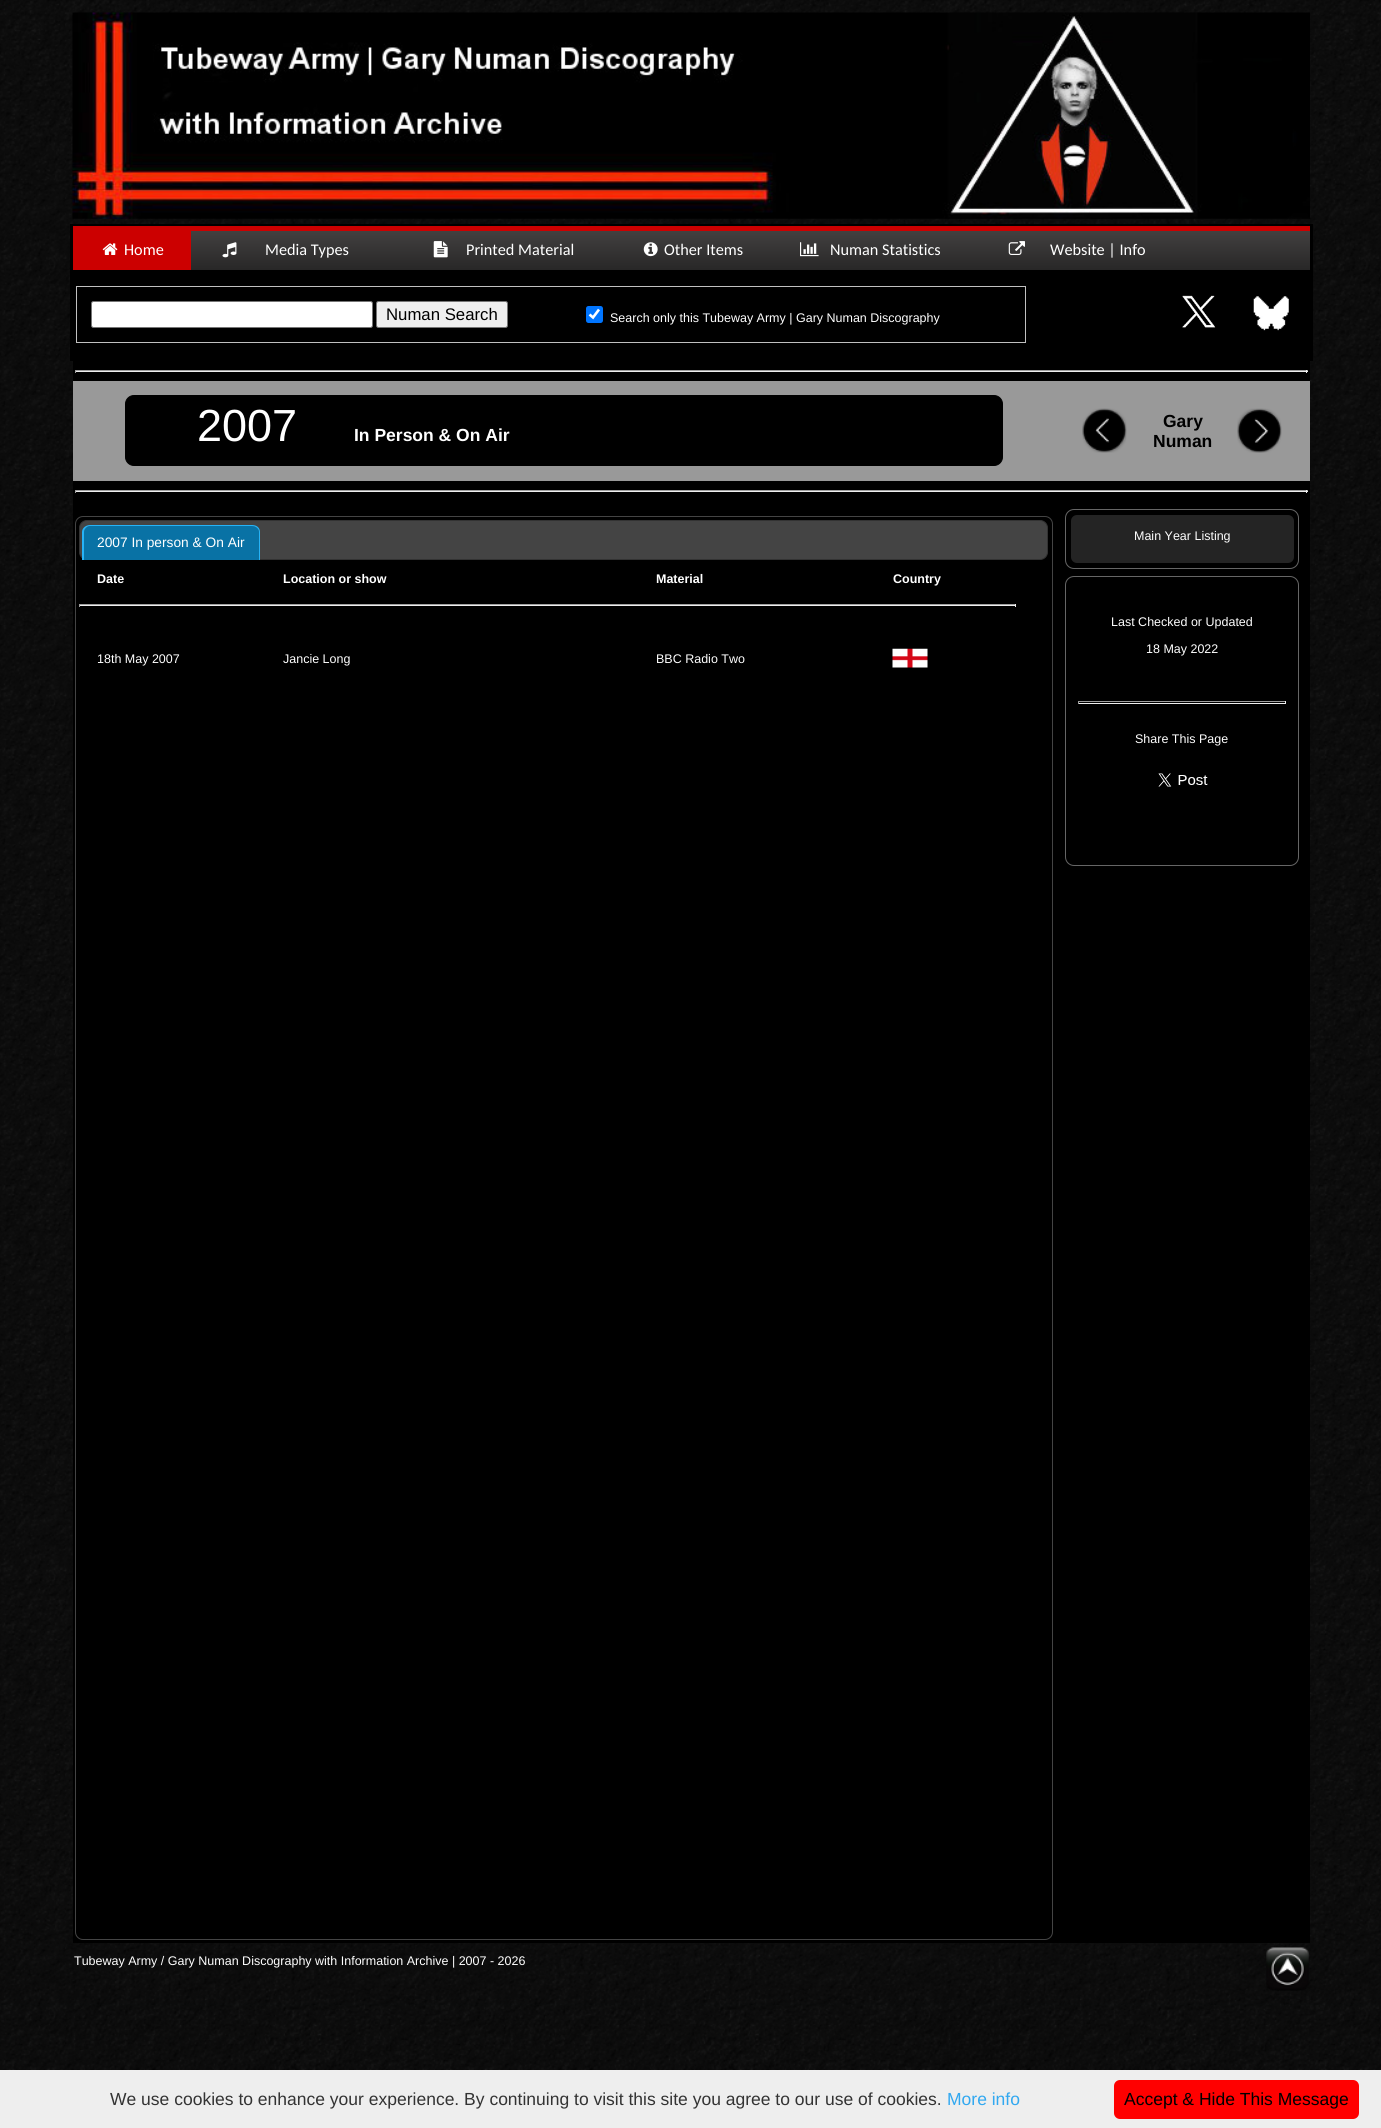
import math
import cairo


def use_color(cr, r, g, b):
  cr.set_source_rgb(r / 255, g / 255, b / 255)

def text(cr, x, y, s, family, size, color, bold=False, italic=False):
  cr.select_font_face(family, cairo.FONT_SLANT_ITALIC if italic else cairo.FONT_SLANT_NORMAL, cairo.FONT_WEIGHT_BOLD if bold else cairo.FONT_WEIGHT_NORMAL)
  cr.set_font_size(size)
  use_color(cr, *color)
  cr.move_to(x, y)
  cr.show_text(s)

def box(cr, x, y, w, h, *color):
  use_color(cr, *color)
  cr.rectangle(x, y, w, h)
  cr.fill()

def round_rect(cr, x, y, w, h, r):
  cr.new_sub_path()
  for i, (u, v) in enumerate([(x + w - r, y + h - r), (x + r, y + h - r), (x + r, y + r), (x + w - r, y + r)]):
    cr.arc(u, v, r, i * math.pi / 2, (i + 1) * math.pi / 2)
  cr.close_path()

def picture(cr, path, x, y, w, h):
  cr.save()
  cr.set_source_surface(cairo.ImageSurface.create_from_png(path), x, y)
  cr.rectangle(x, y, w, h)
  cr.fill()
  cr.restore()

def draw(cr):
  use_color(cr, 255, 255, 255)
  cr.paint()
  picture(cr, "img_01.png", 0, 0, 1381, 2070)
  picture(cr, "img_02.png", 72, 12, 1238, 207)
  box(cr, 70, 224, 1243, 137, 0, 0, 0)
  gradient = cairo.LinearGradient(691, 231, 691, 270)
  gradient.add_color_stop_rgba(0, 0.259, 0.251, 0.251, 1)
  gradient.add_color_stop_rgba(1, 0.157, 0.153, 0.153, 1)
  cr.set_source(gradient)
  cr.rectangle(191, 231, 1119, 39)
  cr.fill()
  box(cr, 73, 226, 1237, 5, 204, 0, 0)
  box(cr, 73, 231, 118, 39, 204, 0, 0)
  picture(cr, "img_03.png", 102, 243, 16, 12)
  picture(cr, "img_04.png", 222, 242, 15, 16)
  picture(cr, "img_05.png", 433, 241, 15, 17)
  picture(cr, "img_06.png", 643, 242, 15, 15)
  picture(cr, "img_07.png", 800, 242, 19, 15)
  picture(cr, "img_08.png", 1008, 241, 17, 14)
  cr.rectangle(76.5, 286.5, 949, 56)
  use_color(cr, 192, 192, 192)
  cr.set_line_width(1)
  cr.stroke()
  use_color(cr, 255, 255, 255)
  round_rect(cr, 91.5, 301.5, 281, 26, 2)
  cr.fill_preserve()
  use_color(cr, 118, 118, 118)
  cr.stroke()
  use_color(cr, 239, 239, 239)
  round_rect(cr, 376.5, 301.5, 131, 26, 2)
  cr.fill_preserve()
  use_color(cr, 118, 118, 118)
  cr.stroke()
  use_color(cr, 0, 117, 255)
  round_rect(cr, 586, 306, 17, 17, 2.5)
  cr.fill()
  cr.new_path()
  cr.move_to(589.5, 314.5)
  cr.line_to(593, 317.5)
  cr.line_to(599, 309.5)
  use_color(cr, 255, 255, 255)
  cr.set_line_width(2.6)
  cr.stroke()
  picture(cr, "img_09.png", 1182, 295, 34, 33)
  picture(cr, "img_10.png", 1253, 296, 36, 35)
  box(cr, 73, 361, 1237, 20, 0, 0, 0)
  box(cr, 75, 370, 1233, 1, 159, 159, 159)
  box(cr, 1306, 370, 1, 3, 238, 238, 238)
  box(cr, 75, 371, 1233, 1, 238, 238, 238)
  box(cr, 75, 370, 1, 3, 159, 159, 159)
  box(cr, 73, 381, 1237, 100, 153, 153, 153)
  use_color(cr, 0, 0, 0)
  round_rect(cr, 125.5, 395.5, 877, 70, 8.5)
  cr.fill_preserve()
  cr.set_line_width(1)
  cr.stroke()
  picture(cr, "img_11.png", 1082, 408, 45, 45)
  picture(cr, "img_12.png", 1237, 408, 45, 45)
  box(cr, 73, 481, 1237, 20, 0, 0, 0)
  box(cr, 75, 490, 1233, 1, 159, 159, 159)
  box(cr, 1306, 490, 1, 3, 238, 238, 238)
  box(cr, 75, 491, 1233, 1, 238, 238, 238)
  box(cr, 75, 490, 1, 3, 159, 159, 159)
  box(cr, 73, 501, 1237, 1442, 0, 0, 0)
  round_rect(cr, 75.5, 516.5, 977, 1423, 7.5)
  use_color(cr, 68, 68, 68)
  cr.stroke()
  round_rect(cr, 79.5, 520.5, 968, 39, 7.5)
  cr.fill_preserve()
  use_color(cr, 51, 51, 51)
  cr.stroke()
  use_color(cr, 9, 114, 165)
  cr.new_path()
  cr.move_to(90, 526)
  cr.line_to(253, 526)
  cr.curve_to(256.5, 526, 259, 528.5, 259, 532)
  cr.line_to(259, 560)
  cr.line_to(84, 560)
  cr.line_to(84, 532)
  cr.curve_to(84, 528.5, 86.5, 526, 90, 526)
  cr.close_path()
  cr.fill()
  use_color(cr, 38, 179, 247)
  cr.set_fill_rule(cairo.FILL_RULE_EVEN_ODD)
  cr.new_path()
  cr.move_to(90, 525)
  cr.line_to(252, 525)
  cr.curve_to(257, 525, 260, 528, 260, 532)
  cr.line_to(260, 560)
  cr.line_to(82, 560)
  cr.line_to(82, 532)
  cr.curve_to(82, 528, 86, 525, 90, 525)
  cr.close_path()
  cr.move_to(90, 526)
  cr.line_to(252, 526)
  cr.curve_to(256, 526, 259, 529, 259, 532)
  cr.line_to(259, 560)
  cr.line_to(84, 560)
  cr.line_to(84, 532)
  cr.curve_to(84, 529, 87, 526, 90, 526)
  cr.close_path()
  cr.fill()
  box(cr, 79, 604, 937, 1, 159, 159, 159)
  box(cr, 1015, 604, 1, 3, 238, 238, 238)
  box(cr, 79, 605, 937, 1, 238, 238, 238)
  box(cr, 79, 604, 1, 3, 159, 159, 159)
  picture(cr, "img_13.png", 892, 648, 36, 20)
  round_rect(cr, 1065.5, 509.5, 233, 59, 8.5)
  use_color(cr, 102, 102, 102)
  cr.stroke()
  use_color(cr, 36, 36, 36)
  round_rect(cr, 1071, 515, 223, 48, 6)
  cr.fill()
  round_rect(cr, 1065.5, 576.5, 233, 289, 8.5)
  use_color(cr, 102, 102, 102)
  cr.stroke()
  box(cr, 1078, 701, 208, 1, 159, 159, 159)
  box(cr, 1285, 701, 1, 3, 238, 238, 238)
  box(cr, 1078, 703, 208, 1, 238, 238, 238)
  box(cr, 1078, 701, 1, 3, 159, 159, 159)
  picture(cr, "img_14.png", 1158, 773, 50, 14)
  picture(cr, "img_15.png", 1266, 1947, 43, 44)
  box(cr, 0, 2070, 1381, 58, 238, 238, 238)
  use_color(cr, 255, 0, 0)
  round_rect(cr, 1114, 2080, 245, 39, 6)
  cr.fill()
  text(cr, 124, 255, "Home", "Carlito", 16.25, (255, 255, 255))
  text(cr, 265, 255, "Media Types", "Carlito", 16.25, (255, 255, 255))
  text(cr, 466, 255, "Printed Material", "Carlito", 16.25, (255, 255, 255))
  text(cr, 664, 255, "Other Items", "Carlito", 16.25, (255, 255, 255))
  text(cr, 830, 255, "Numan Statistics", "Carlito", 16.25, (255, 255, 255))
  text(cr, 1050, 255, "Website | Info", "Carlito", 16.25, (255, 255, 255))
  text(cr, 386, 320, "Numan Search", "Liberation Sans", 16.75, (0, 0, 0))
  text(cr, 610, 322, "Search only this Tubeway Army | Gary Numan Discography", "Liberation Sans", 12.5, (255, 255, 255))
  text(cr, 197, 441, "2007", "Liberation Sans", 45, (255, 255, 255))
  text(cr, 354, 441, "In Person & On Air", "Liberation Sans", 17.5, (255, 255, 255), bold=True)
  text(cr, 1163, 427, "Gary", "Liberation Sans", 17.5, (0, 0, 0), bold=True)
  text(cr, 1153, 447, "Numan", "Liberation Sans", 17.5, (0, 0, 0), bold=True)
  text(cr, 97, 547, "2007 In person & On Air", "Liberation Sans", 13.75, (255, 255, 255))
  text(cr, 97, 583, "Date", "Liberation Sans", 12.5, (255, 255, 255), bold=True)
  text(cr, 283, 583, "Location or show", "Liberation Sans", 12.5, (255, 255, 255), bold=True)
  text(cr, 656, 583, "Material", "Liberation Sans", 12.5, (255, 255, 255), bold=True)
  text(cr, 893, 583, "Country", "Liberation Sans", 12.5, (255, 255, 255), bold=True)
  text(cr, 97, 663, "18th May 2007", "Liberation Sans", 12.5, (255, 255, 255))
  text(cr, 283, 663, "Jancie Long", "Liberation Sans", 12.5, (255, 255, 255))
  text(cr, 656, 663, "BBC Radio Two", "Liberation Sans", 12.5, (255, 255, 255))
  text(cr, 1134, 540, "Main Year Listing", "Liberation Sans", 12.5, (255, 255, 255))
  text(cr, 1111, 626, "Last Checked or Updated", "Liberation Sans", 12.5, (255, 255, 255))
  text(cr, 1146, 653, "18 May 2022", "Liberation Sans", 12.5, (255, 255, 255))
  text(cr, 1135, 743, "Share This Page", "Liberation Sans", 12.5, (255, 255, 255))
  text(cr, 74, 1965, "Tubeway Army / Gary Numan Discography with Information Archive | 2007 - 2026", "Liberation Sans", 12.5, (255, 255, 255))
  text(cr, 110, 2105, "We use cookies to enhance your experience. By continuing to visit this site you agree to our use of cookies.", "Liberation Sans", 17.5, (51, 51, 51))
  text(cr, 947, 2105, "More info", "Liberation Sans", 17.5, (49, 168, 240))
  text(cr, 1124, 2105, "Accept & Hide This Message", "Liberation Sans", 17.5, (0, 0, 0))


surface = cairo.ImageSurface(cairo.FORMAT_RGB24, 1381, 2128)
cr = cairo.Context(surface)
options = cairo.FontOptions()
options.set_hint_metrics(cairo.HINT_METRICS_OFF)
options.set_hint_style(cairo.HINT_STYLE_NONE)
cr.set_font_options(options)
cr.set_miter_limit(4)
draw(cr)
surface.write_to_png("out.png")
